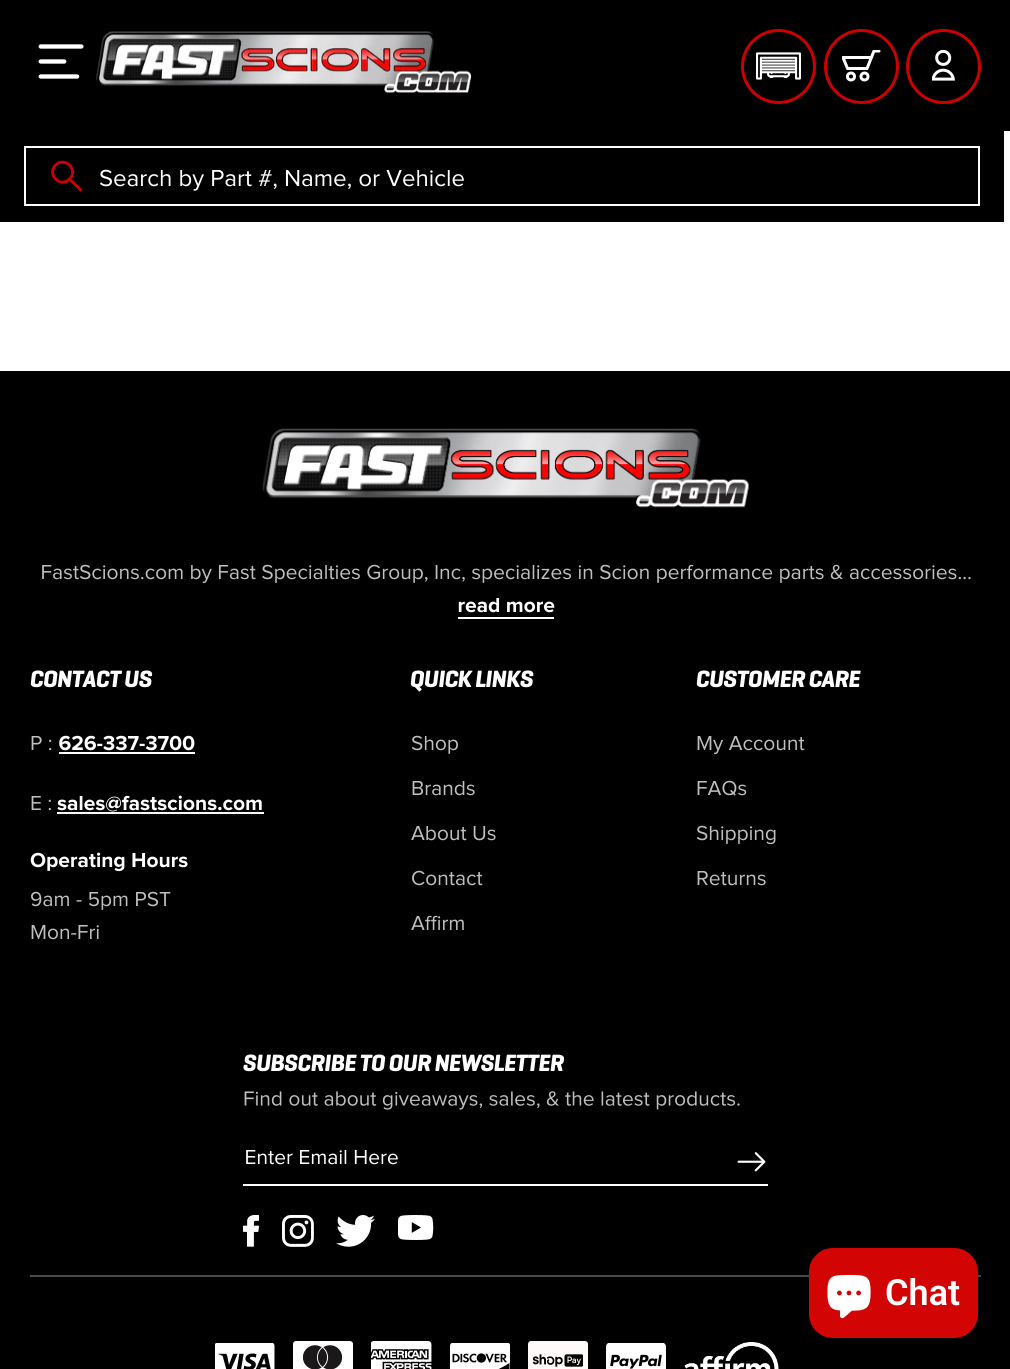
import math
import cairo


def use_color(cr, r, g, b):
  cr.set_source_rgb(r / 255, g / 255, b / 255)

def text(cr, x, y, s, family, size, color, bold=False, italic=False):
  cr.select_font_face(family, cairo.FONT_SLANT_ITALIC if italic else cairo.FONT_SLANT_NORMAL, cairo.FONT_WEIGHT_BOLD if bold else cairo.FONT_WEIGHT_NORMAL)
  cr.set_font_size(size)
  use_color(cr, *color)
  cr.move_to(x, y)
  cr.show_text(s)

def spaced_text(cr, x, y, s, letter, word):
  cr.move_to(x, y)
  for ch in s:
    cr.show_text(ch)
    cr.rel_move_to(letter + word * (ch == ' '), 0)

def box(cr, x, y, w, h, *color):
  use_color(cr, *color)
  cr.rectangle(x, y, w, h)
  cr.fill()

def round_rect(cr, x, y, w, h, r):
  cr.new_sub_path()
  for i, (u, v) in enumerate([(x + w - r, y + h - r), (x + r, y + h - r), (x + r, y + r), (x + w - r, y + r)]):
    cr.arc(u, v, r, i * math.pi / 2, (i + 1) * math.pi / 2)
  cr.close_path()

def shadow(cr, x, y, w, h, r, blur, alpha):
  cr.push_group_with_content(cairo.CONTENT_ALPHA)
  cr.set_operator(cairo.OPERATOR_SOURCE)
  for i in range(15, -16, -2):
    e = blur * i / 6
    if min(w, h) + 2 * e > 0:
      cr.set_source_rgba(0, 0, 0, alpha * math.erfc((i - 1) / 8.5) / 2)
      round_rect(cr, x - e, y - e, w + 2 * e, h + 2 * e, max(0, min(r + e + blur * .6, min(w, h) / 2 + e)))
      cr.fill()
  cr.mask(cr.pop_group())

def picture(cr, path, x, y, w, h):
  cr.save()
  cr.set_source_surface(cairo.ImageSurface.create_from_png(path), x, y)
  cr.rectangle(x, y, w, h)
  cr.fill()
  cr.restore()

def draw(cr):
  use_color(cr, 255, 255, 255)
  cr.paint()
  box(cr, 0, 0, 1010, 131, 0, 0, 0)
  picture(cr, "img_01.png", 38, 44, 46, 35)
  picture(cr, "img_02.png", 96, 31, 375, 62)
  cr.arc(778.5, 66.5, 36, 0, 2 * math.pi)
  use_color(cr, 204, 0, 0)
  cr.set_line_width(3)
  cr.stroke()
  picture(cr, "img_03.png", 756, 52, 45, 28)
  cr.arc(861.5, 66.5, 36, 0, 2 * math.pi)
  cr.stroke()
  cr.save()
  cr.rectangle(842, 50, 39, 33)
  cr.clip()
  cr.new_path()
  cr.move_to(879, 51)
  cr.line_to(874, 51)
  cr.line_to(867, 68.5)
  cr.line_to(847.5, 68.5)
  cr.line_to(843, 57.5)
  cr.line_to(871, 57.5)
  use_color(cr, 255, 255, 255)
  cr.set_line_cap(cairo.LINE_CAP_ROUND)
  cr.set_line_join(cairo.LINE_JOIN_ROUND)
  cr.stroke()
  cr.restore()
  cr.arc(851, 76.5, 3.5, 0, 2 * math.pi)
  use_color(cr, 255, 255, 255)
  cr.stroke()
  cr.arc(864.5, 76.5, 3.5, 0, 2 * math.pi)
  cr.stroke()
  cr.arc(943.5, 66.5, 36, 0, 2 * math.pi)
  use_color(cr, 204, 0, 0)
  cr.stroke()
  picture(cr, "img_04.png", 932, 49, 23, 32)
  box(cr, 0, 131, 1004, 91, 0, 0, 0)
  cr.rectangle(25, 147, 954, 58)
  use_color(cr, 255, 255, 255)
  cr.set_line_width(2)
  cr.stroke()
  picture(cr, "img_05.png", 100, 169, 364, 22)
  cr.new_path()
  cr.move_to(55.5, 165)
  cr.curve_to(65, 156, 79, 170, 69.5, 179)
  cr.curve_to(60.5, 188.5, 46.5, 174.5, 55.5, 165)
  cr.close_path()
  use_color(cr, 204, 0, 0)
  cr.set_line_width(2.9)
  cr.stroke()
  cr.new_path()
  cr.move_to(70.5, 180)
  cr.line_to(80.5, 190)
  cr.set_line_cap(cairo.LINE_CAP_ROUND)
  cr.stroke()
  box(cr, 0, 371, 1010, 998, 0, 0, 0)
  picture(cr, "img_06.png", 262, 428, 487, 80)
  picture(cr, "img_07.png", 42, 564, 929, 20)
  picture(cr, "img_08.png", 458, 598, 97, 15)
  box(cr, 458, 617, 96, 2, 255, 255, 255)
  picture(cr, "img_09.png", 31, 736, 21, 15)
  picture(cr, "img_10.png", 59, 735, 136, 16)
  box(cr, 59, 752, 136, 2, 255, 255, 255)
  picture(cr, "img_11.png", 31, 796, 20, 15)
  picture(cr, "img_12.png", 57, 795, 205, 17)
  box(cr, 57, 812, 207, 2, 255, 255, 255)
  picture(cr, "img_13.png", 30, 852, 158, 20)
  picture(cr, "img_14.png", 31, 891, 140, 19)
  picture(cr, "img_15.png", 31, 925, 68, 15)
  picture(cr, "img_16.png", 412, 735, 46, 19)
  picture(cr, "img_17.png", 412, 781, 63, 15)
  picture(cr, "img_18.png", 411, 826, 85, 15)
  picture(cr, "img_19.png", 412, 870, 71, 16)
  picture(cr, "img_20.png", 411, 915, 53, 15)
  picture(cr, "img_21.png", 697, 736, 108, 19)
  picture(cr, "img_22.png", 697, 780, 50, 16)
  picture(cr, "img_23.png", 697, 825, 79, 20)
  picture(cr, "img_24.png", 697, 871, 69, 15)
  picture(cr, "img_25.png", 244, 1091, 496, 19)
  picture(cr, "img_26.png", 246, 1150, 152, 15)
  picture(cr, "img_27.png", 737, 1152, 29, 20)
  box(cr, 243, 1184, 525, 2, 255, 255, 255)
  picture(cr, "img_28.png", 243, 1215, 16, 32)
  picture(cr, "img_29.png", 282, 1215, 32, 32)
  picture(cr, "img_30.png", 336, 1215, 39, 32)
  picture(cr, "img_31.png", 398, 1215, 36, 25)
  box(cr, 30, 1275, 951, 2, 74, 74, 74)
  picture(cr, "img_32.png", 215, 1343, 60, 26)
  picture(cr, "img_33.png", 293, 1341, 60, 28)
  picture(cr, "img_34.png", 371, 1341, 61, 28)
  picture(cr, "img_35.png", 450, 1343, 60, 26)
  picture(cr, "img_36.png", 528, 1341, 60, 28)
  picture(cr, "img_37.png", 606, 1343, 60, 26)
  picture(cr, "img_38.png", 684, 1342, 95, 27)
  use_color(cr, 0, 0, 0)
  shadow(cr, 809, 1248, 169, 90, 24, 4, 0.15)
  use_color(cr, 210, 4, 4)
  round_rect(cr, 809, 1248, 169, 90, 24)
  cr.fill()
  picture(cr, "img_39.png", 827, 1275, 44, 44)
  cr.select_font_face("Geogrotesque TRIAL", cairo.FONT_SLANT_ITALIC, cairo.FONT_WEIGHT_BOLD)
  cr.set_font_size(24)
  use_color(cr, 255, 255, 255)
  spaced_text(cr, 30, 687, "CONTACT US", -0.6, 0)
  spaced_text(cr, 410, 687, "QUICK LINKS", -0.6, 0)
  spaced_text(cr, 696, 687, "CUSTOMER CARE", -0.6, 0)
  spaced_text(cr, 243, 1071, "SUBSCRIBE TO OUR NEWSLETTER", -0.6, 0)
  text(cr, 885, 1305, "Chat", "Roboto SemiBold", 36, (255, 255, 255))


surface = cairo.ImageSurface(cairo.FORMAT_RGB24, 1010, 1369)
cr = cairo.Context(surface)
options = cairo.FontOptions()
options.set_hint_metrics(cairo.HINT_METRICS_OFF)
options.set_hint_style(cairo.HINT_STYLE_NONE)
cr.set_font_options(options)
cr.set_miter_limit(4)
draw(cr)
surface.write_to_png("out.png")
